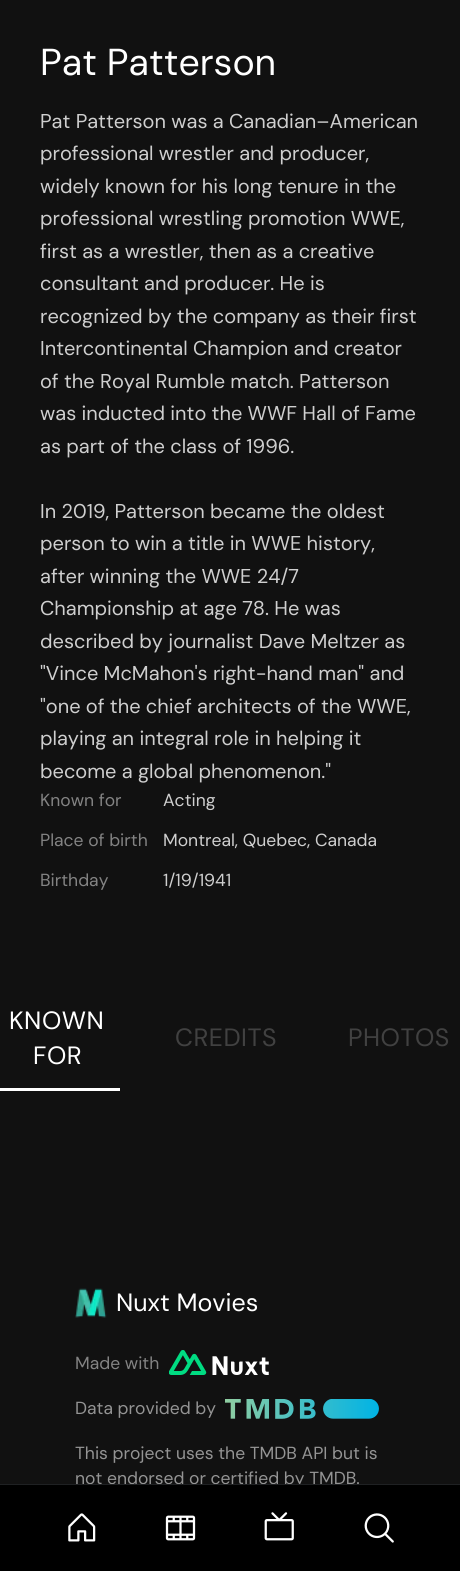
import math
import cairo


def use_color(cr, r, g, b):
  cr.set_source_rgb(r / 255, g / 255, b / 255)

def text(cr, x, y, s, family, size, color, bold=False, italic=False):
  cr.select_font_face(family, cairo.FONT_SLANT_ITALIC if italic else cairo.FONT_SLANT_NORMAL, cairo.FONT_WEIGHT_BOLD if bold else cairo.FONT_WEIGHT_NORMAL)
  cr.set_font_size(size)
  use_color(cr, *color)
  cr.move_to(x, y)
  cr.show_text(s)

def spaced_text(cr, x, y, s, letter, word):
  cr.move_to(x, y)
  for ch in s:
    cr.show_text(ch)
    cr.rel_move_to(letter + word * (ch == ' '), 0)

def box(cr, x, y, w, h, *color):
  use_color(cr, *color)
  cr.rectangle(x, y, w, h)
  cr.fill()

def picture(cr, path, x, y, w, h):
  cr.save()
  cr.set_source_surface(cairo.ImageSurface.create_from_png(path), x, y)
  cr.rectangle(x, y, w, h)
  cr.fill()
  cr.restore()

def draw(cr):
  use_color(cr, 17, 17, 17)
  cr.paint()
  box(cr, 0, 1088, 120, 3, 255, 255, 255)
  picture(cr, "img_01.png", 75, 1288, 32, 30)
  picture(cr, "img_02.png", 169, 1350, 100, 25)
  picture(cr, "img_03.png", 225, 1399, 154, 20)
  box(cr, 0, 1485, 460, 86, 0, 0, 0)
  box(cr, 0, 1484, 460, 1, 31, 33, 35)
  picture(cr, "img_04.png", 68, 1513, 28, 29)
  picture(cr, "img_05.png", 165, 1515, 31, 26)
  picture(cr, "img_06.png", 264, 1512, 30, 29)
  picture(cr, "img_07.png", 364, 1513, 30, 30)
  text(cr, 40, 75, "Pat Patterson", "DM Sans", 37.5, (255, 255, 255))
  text(cr, 40, 128, "Pat Patterson was a Canadian–American", "DM Sans", 20, (207, 207, 207))
  text(cr, 40, 160, "professional wrestler and producer,", "DM Sans", 20, (207, 207, 207))
  text(cr, 40, 193, "widely known for his long tenure in the", "DM Sans", 20, (207, 207, 207))
  text(cr, 40, 225, "professional wrestling promotion WWE,", "DM Sans", 20, (207, 207, 207))
  text(cr, 40, 258, "first as a wrestler, then as a creative", "DM Sans", 20, (207, 207, 207))
  text(cr, 40, 290, "consultant and producer. He is", "DM Sans", 20, (207, 207, 207))
  text(cr, 40, 323, "recognized by the company as their first", "DM Sans", 20, (207, 207, 207))
  text(cr, 40, 355, "Intercontinental Champion and creator", "DM Sans", 20, (207, 207, 207))
  text(cr, 40, 388, "of the Royal Rumble match. Patterson", "DM Sans", 20, (207, 207, 207))
  text(cr, 40, 420, "was inducted into the WWF Hall of Fame", "DM Sans", 20, (207, 207, 207))
  text(cr, 40, 453, "as part of the class of 1996.", "DM Sans", 20, (207, 207, 207))
  text(cr, 40, 518, "In 2019, Patterson became the oldest", "DM Sans", 20, (207, 207, 207))
  text(cr, 40, 550, "person to win a title in WWE history,", "DM Sans", 20, (207, 207, 207))
  text(cr, 40, 583, "after winning the WWE 24/7", "DM Sans", 20, (207, 207, 207))
  text(cr, 40, 615, "Championship at age 78. He was", "DM Sans", 20, (207, 207, 207))
  text(cr, 40, 648, "described by journalist Dave Meltzer as", "DM Sans", 20, (207, 207, 207))
  text(cr, 40, 680, "\"Vince McMahon's right-hand man\" and", "DM Sans", 20, (207, 207, 207))
  text(cr, 40, 713, "\"one of the chief architects of the WWE,", "DM Sans", 20, (207, 207, 207))
  text(cr, 40, 745, "playing an integral role in helping it", "DM Sans", 20, (207, 207, 207))
  text(cr, 40, 778, "become a global phenomenon.\"", "DM Sans", 20, (207, 207, 207))
  text(cr, 40, 806, "Known for", "DM Sans", 17.5, (131, 131, 131))
  text(cr, 163, 806, "Acting", "DM Sans", 17.5, (207, 207, 207))
  text(cr, 40, 846, "Place of birth", "DM Sans", 17.5, (131, 131, 131))
  text(cr, 163, 846, "Montreal, Quebec, Canada", "DM Sans", 17.5, (207, 207, 207))
  text(cr, 40, 886, "Birthday", "DM Sans", 17.5, (131, 131, 131))
  text(cr, 163, 886, "1/19/1941", "DM Sans", 17.5, (207, 207, 207))
  cr.set_font_size(25)
  use_color(cr, 255, 255, 255)
  spaced_text(cr, 9, 1029, "KNOWN", 0.5, 0)
  spaced_text(cr, 33, 1064, "FOR", 0.5, 0)
  use_color(cr, 65, 65, 65)
  spaced_text(cr, 175, 1046, "CREDITS", 0.5, 0)
  spaced_text(cr, 348, 1046, "PHOTOS", 0.5, 0)
  text(cr, 116, 1311, "Nuxt Movies", "DM Sans", 25, (255, 255, 255))
  text(cr, 75, 1369, "Made with", "DM Sans", 17.5, (131, 131, 131))
  text(cr, 75, 1414, "Data provided by", "DM Sans", 17.5, (148, 148, 148))
  text(cr, 75, 1459, "This project uses the TMDB API but is", "DM Sans", 17.5, (148, 148, 148))
  cr.save()
  cr.rectangle(0, 0, 460, 1484)
  cr.clip()
  text(cr, 75, 1484, "not endorsed or certified by TMDB.", "DM Sans", 17.5, (148, 148, 148))
  cr.restore()


surface = cairo.ImageSurface(cairo.FORMAT_RGB24, 460, 1571)
cr = cairo.Context(surface)
options = cairo.FontOptions()
options.set_hint_metrics(cairo.HINT_METRICS_OFF)
options.set_hint_style(cairo.HINT_STYLE_NONE)
cr.set_font_options(options)
cr.set_miter_limit(4)
draw(cr)
surface.write_to_png("out.png")
